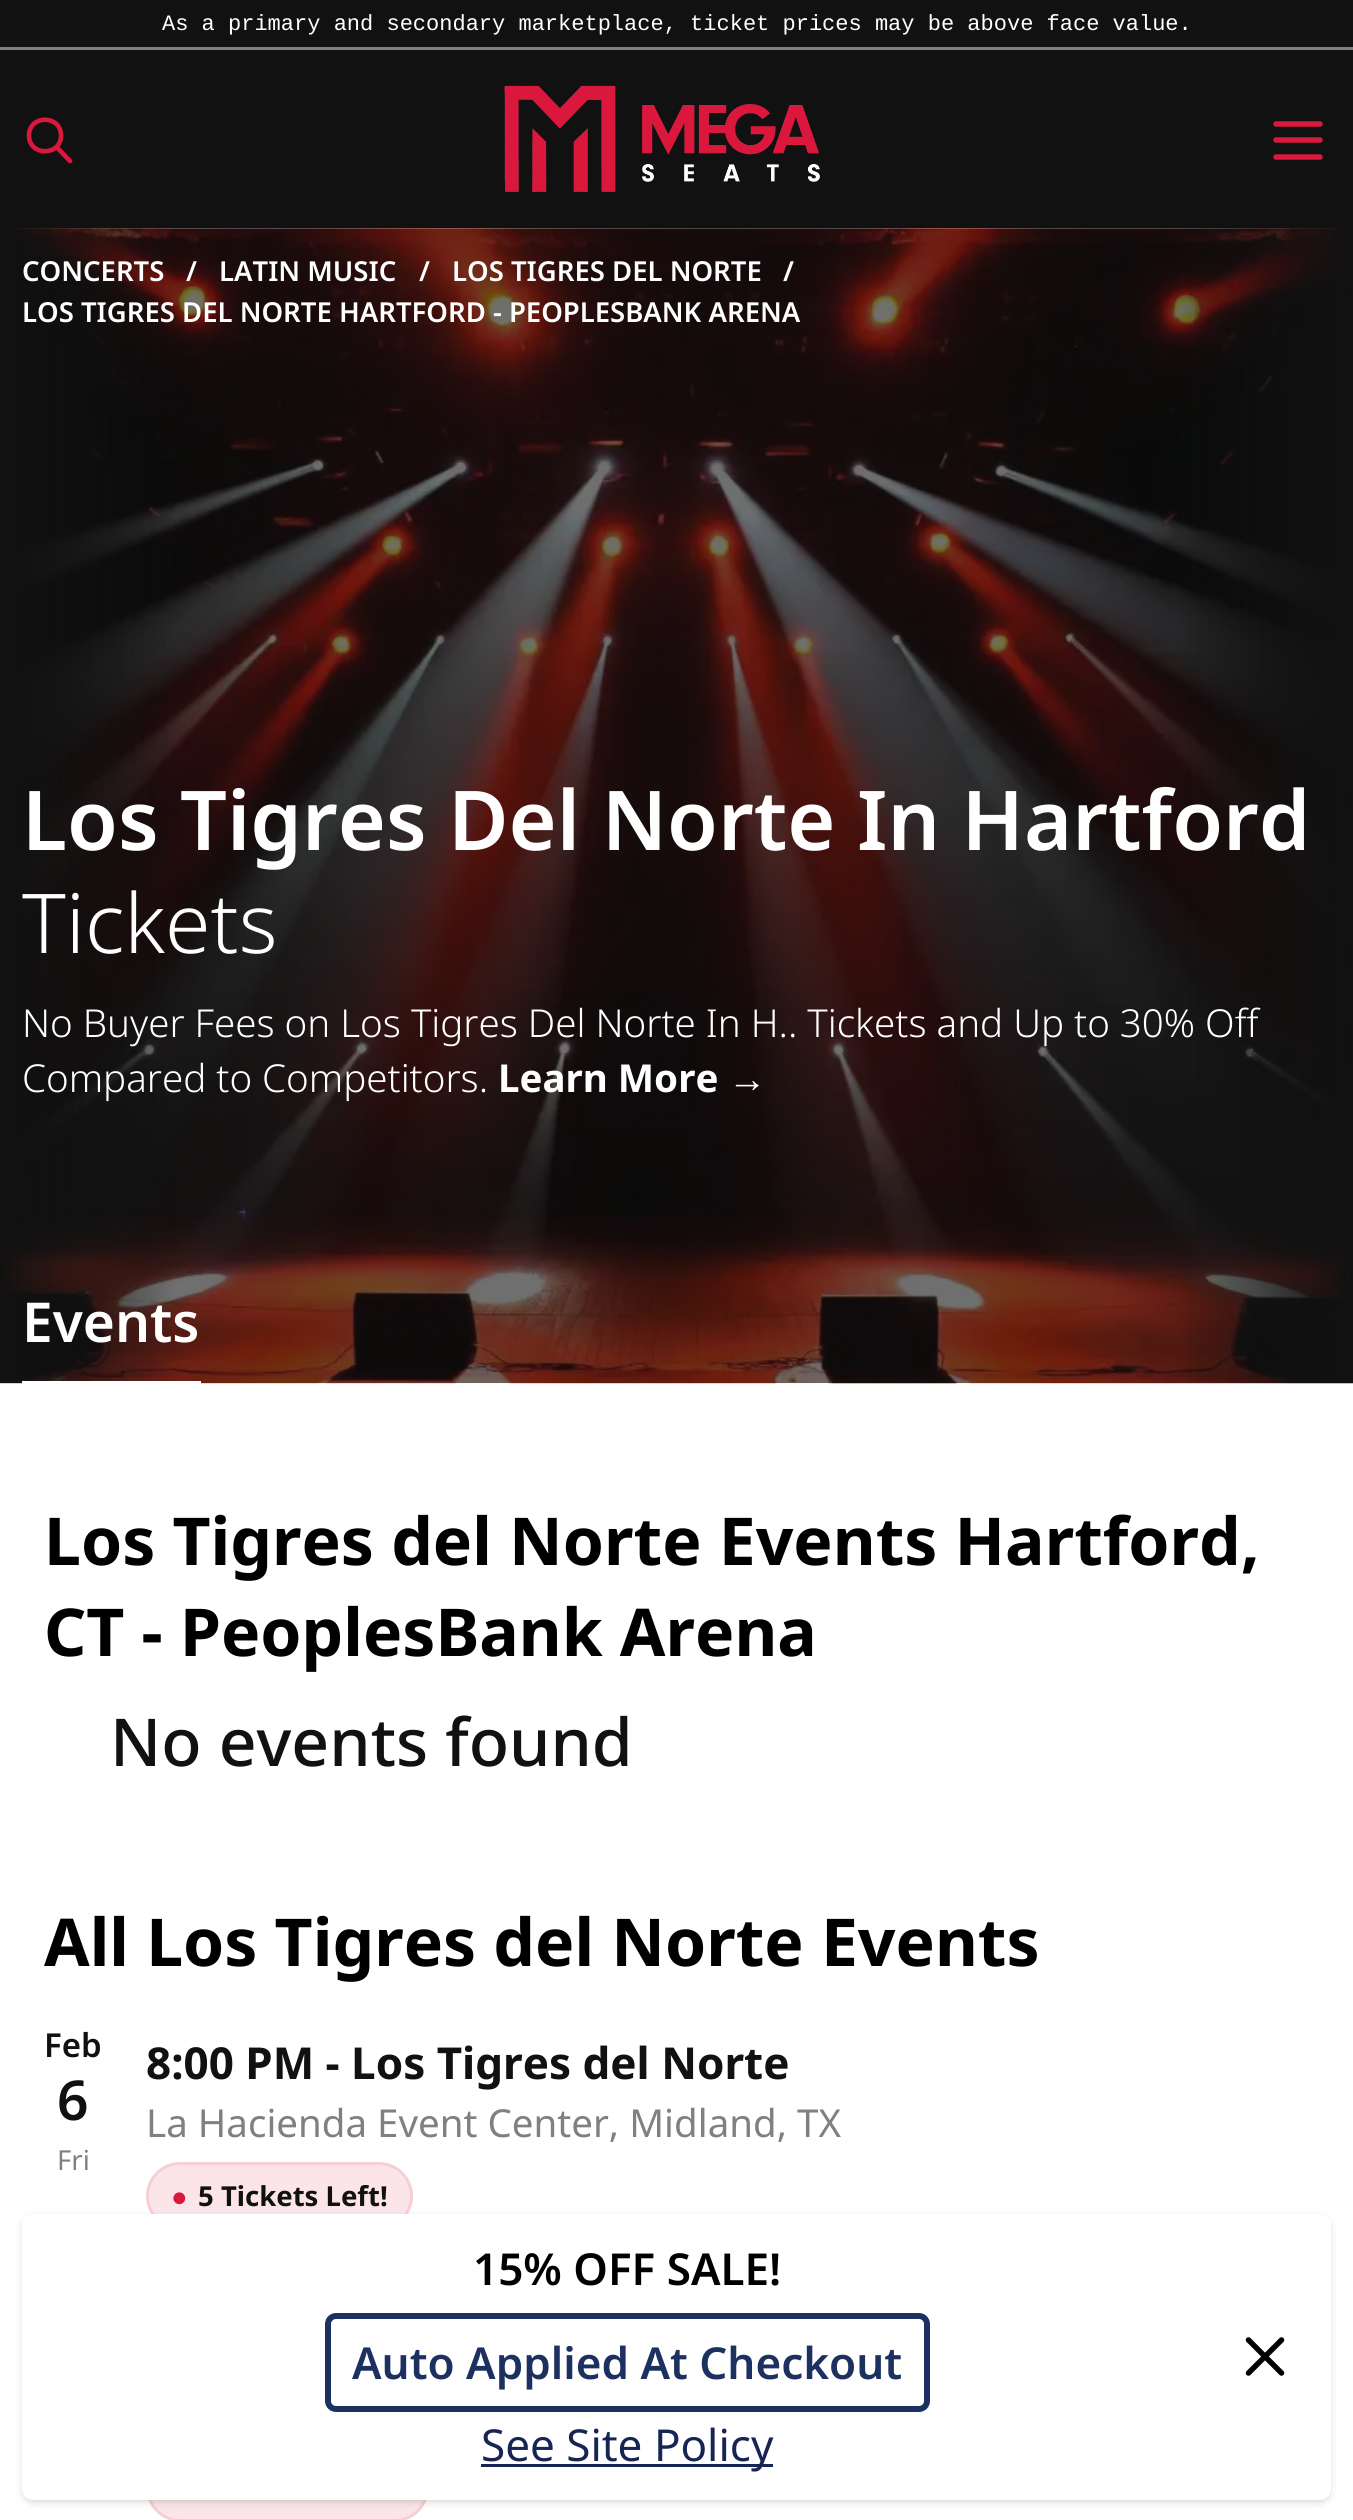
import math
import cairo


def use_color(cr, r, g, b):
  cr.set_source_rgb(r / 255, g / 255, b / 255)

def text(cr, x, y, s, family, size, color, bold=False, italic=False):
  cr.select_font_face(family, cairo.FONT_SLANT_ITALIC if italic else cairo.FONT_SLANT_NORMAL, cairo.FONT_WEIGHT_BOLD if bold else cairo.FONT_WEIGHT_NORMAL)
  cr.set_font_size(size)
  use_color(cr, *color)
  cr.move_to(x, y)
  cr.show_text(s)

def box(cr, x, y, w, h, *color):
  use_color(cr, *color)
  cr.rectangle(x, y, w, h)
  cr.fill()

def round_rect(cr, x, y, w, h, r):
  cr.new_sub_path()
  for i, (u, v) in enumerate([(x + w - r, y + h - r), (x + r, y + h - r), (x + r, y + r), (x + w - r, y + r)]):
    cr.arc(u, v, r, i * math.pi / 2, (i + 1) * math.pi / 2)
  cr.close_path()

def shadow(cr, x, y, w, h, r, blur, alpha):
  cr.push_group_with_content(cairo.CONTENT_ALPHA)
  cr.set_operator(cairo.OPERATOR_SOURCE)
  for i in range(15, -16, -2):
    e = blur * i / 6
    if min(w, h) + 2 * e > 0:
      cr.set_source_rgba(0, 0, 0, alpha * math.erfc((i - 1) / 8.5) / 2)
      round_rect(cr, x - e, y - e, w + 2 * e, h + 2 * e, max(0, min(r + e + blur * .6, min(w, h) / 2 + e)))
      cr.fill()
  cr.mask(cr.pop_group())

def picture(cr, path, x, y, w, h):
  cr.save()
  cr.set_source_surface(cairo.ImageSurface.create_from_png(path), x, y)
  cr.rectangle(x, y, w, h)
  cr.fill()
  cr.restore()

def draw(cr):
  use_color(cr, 255, 255, 255)
  cr.paint()
  box(cr, 0, 0, 1353, 47, 17, 17, 17)
  box(cr, 0, 47, 1353, 3, 128, 128, 128)
  box(cr, 0, 50, 1353, 178, 17, 17, 17)
  cr.new_path()
  cr.move_to(70, 161)
  cr.line_to(56.5, 147)
  cr.move_to(61, 135.5)
  cr.curve_to(61, 156.5, 29, 156.5, 29, 135.5)
  cr.curve_to(29, 114.5, 61, 114.5, 61, 135.5)
  cr.close_path()
  use_color(cr, 218, 24, 59)
  cr.set_line_width(4.6)
  cr.set_line_cap(cairo.LINE_CAP_ROUND)
  cr.set_line_join(cairo.LINE_JOIN_ROUND)
  cr.stroke()
  picture(cr, "img_01.png", 504, 85, 316, 107)
  cr.new_path()
  cr.move_to(1276, 124)
  cr.line_to(1320, 124)
  cr.move_to(1276, 140)
  cr.line_to(1320, 140)
  cr.move_to(1276, 157)
  cr.line_to(1320, 157)
  cr.set_line_width(5.5)
  cr.stroke()
  picture(cr, "img_02.png", 0, 228, 1353, 1156)
  gradient = cairo.LinearGradient(0, 806, 176, 806)
  gradient.add_color_stop_rgba(0, 0.067, 0.067, 0.067, 1)
  gradient.add_color_stop_rgba(1, 0.067, 0.067, 0.067, 0)
  cr.set_source(gradient)
  cr.rectangle(0, 228, 172, 1155)
  cr.fill()
  gradient = cairo.LinearGradient(1353, 806, 1177, 806)
  gradient.add_color_stop_rgba(0, 0.067, 0.067, 0.067, 1)
  gradient.add_color_stop_rgba(1, 0.067, 0.067, 0.067, 0)
  cr.set_source(gradient)
  cr.rectangle(1181, 228, 172, 1155)
  cr.fill()
  box(cr, 22, 1381, 179, 3, 255, 255, 255)
  use_color(cr, 251, 229, 233)
  round_rect(cr, 146, 2162, 267, 68, 34)
  cr.fill()
  round_rect(cr, 147.5, 2163.5, 264, 65, 32.5)
  cr.set_source_rgba(0.855, 0.094, 0.231, 0.11)
  cr.set_line_width(3)
  cr.set_line_cap(cairo.LINE_CAP_BUTT)
  cr.set_line_join(cairo.LINE_JOIN_MITER)
  cr.stroke()
  use_color(cr, 251, 229, 233)
  round_rect(cr, 146, 2453, 283, 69, 34.5)
  cr.fill()
  round_rect(cr, 147.5, 2454.5, 280, 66, 33)
  cr.set_source_rgba(0.855, 0.094, 0.231, 0.11)
  cr.stroke()
  use_color(cr, 0, 0, 0)
  shadow(cr, 25, 2219, 1303, 281, 8, 3, 0.1)
  shadow(cr, 22, 2217, 1309, 286, 11, 4, 0.1)
  use_color(cr, 255, 255, 255)
  round_rect(cr, 22, 2214, 1309, 286, 11)
  cr.fill()
  round_rect(cr, 328, 2316, 599, 93, 8)
  use_color(cr, 28, 49, 95)
  cr.set_line_width(6)
  cr.stroke()
  box(cr, 481, 2464, 292, 3, 23, 37, 84)
  cr.new_path()
  cr.move_to(1248.5, 2373)
  cr.line_to(1281.5, 2340)
  cr.move_to(1248.5, 2340)
  cr.line_to(1281.5, 2373)
  use_color(cr, 0, 0, 0)
  cr.set_line_width(5.5)
  cr.set_line_cap(cairo.LINE_CAP_ROUND)
  cr.set_line_join(cairo.LINE_JOIN_ROUND)
  cr.stroke()
  text(cr, 162, 30, "As a primary and secondary marketplace, ticket prices may be above face value.", "Liberation Mono", 22, (255, 255, 255))
  text(cr, 22, 281, "CONCERTS", "Noto Sans SemiBold", 27.5, (255, 255, 255))
  text(cr, 186, 281, "/", "Noto Sans SemiBold", 27.5, (255, 255, 255))
  text(cr, 219, 281, "LATIN MUSIC", "Noto Sans SemiBold", 27.5, (255, 255, 255))
  text(cr, 419, 281, "/", "Noto Sans SemiBold", 27.5, (255, 255, 255))
  text(cr, 452, 281, "LOS TIGRES DEL NORTE", "Noto Sans SemiBold", 27.5, (255, 255, 255))
  text(cr, 783, 281, "/", "Noto Sans SemiBold", 27.5, (255, 255, 255))
  text(cr, 22, 322, "LOS TIGRES DEL NORTE HARTFORD - PEOPLESBANK ARENA", "Noto Sans SemiBold", 27.5, (255, 255, 255))
  text(cr, 22, 850, "Los Tigres Del Norte In Hartford", "Noto Sans SemiBold", 82.5, (255, 255, 255))
  text(cr, 22, 953, "Tickets", "Noto Sans Light", 82.5, (255, 255, 255))
  text(cr, 22, 1037, "No Buyer Fees on Los Tigres Del Norte In H.. Tickets and Up to 30% Off", "Noto Sans Light", 38.5, (255, 255, 255))
  text(cr, 22, 1092, "Compared to Competitors.", "Noto Sans Light", 38.5, (255, 255, 255))
  text(cr, 498, 1092, "Learn More", "Noto Sans", 38.5, (255, 255, 255), bold=True)
  text(cr, 728, 1092, "→", "Liberation Sans", 38.5, (255, 255, 255), bold=True)
  text(cr, 22, 1342, "Events", "Noto Sans SemiBold", 55, (255, 255, 255))
  text(cr, 44, 1565, "Los Tigres del Norte Events Hartford,", "Noto Sans", 66, (0, 0, 0), bold=True)
  text(cr, 44, 1656, "CT - PeoplesBank Arena", "Noto Sans", 66, (0, 0, 0), bold=True)
  text(cr, 110, 1766, "No events found", "Noto Sans Medium", 66, (17, 17, 17))
  text(cr, 44, 1966, "All Los Tigres del Norte Events", "Noto Sans", 66, (0, 0, 0), bold=True)
  text(cr, 44, 2057, "Feb", "Noto Sans SemiBold", 33, (17, 17, 17))
  text(cr, 57, 2120, "6", "Noto Sans SemiBold", 55, (17, 17, 17))
  text(cr, 57, 2170, "Fri", "Noto Sans", 27.5, (128, 128, 128))
  text(cr, 146, 2079, "8:00 PM - Los Tigres del Norte", "Noto Sans", 44, (17, 17, 17), bold=True)
  text(cr, 146, 2137, "La Hacienda Event Center, Midland, TX", "Noto Sans", 38.5, (128, 128, 128))
  text(cr, 171, 2206, "●", "Liberation Sans", 27.5, (218, 24, 59), bold=True)
  text(cr, 198, 2206, "5 Tickets Left!", "Noto Sans", 27.5, (17, 17, 17), bold=True)
  text(cr, 473, 2285, "15% OFF SALE!", "Noto Sans SemiBold", 44, (0, 0, 0))
  text(cr, 352, 2379, "Auto Applied At Checkout", "Noto Sans SemiBold", 44, (28, 49, 95))
  text(cr, 481, 2461, "See Site Policy", "Noto Sans", 44, (23, 37, 84))


surface = cairo.ImageSurface(cairo.FORMAT_RGB24, 1353, 2520)
cr = cairo.Context(surface)
options = cairo.FontOptions()
options.set_hint_metrics(cairo.HINT_METRICS_OFF)
options.set_hint_style(cairo.HINT_STYLE_NONE)
cr.set_font_options(options)
cr.set_miter_limit(4)
draw(cr)
surface.write_to_png("out.png")
